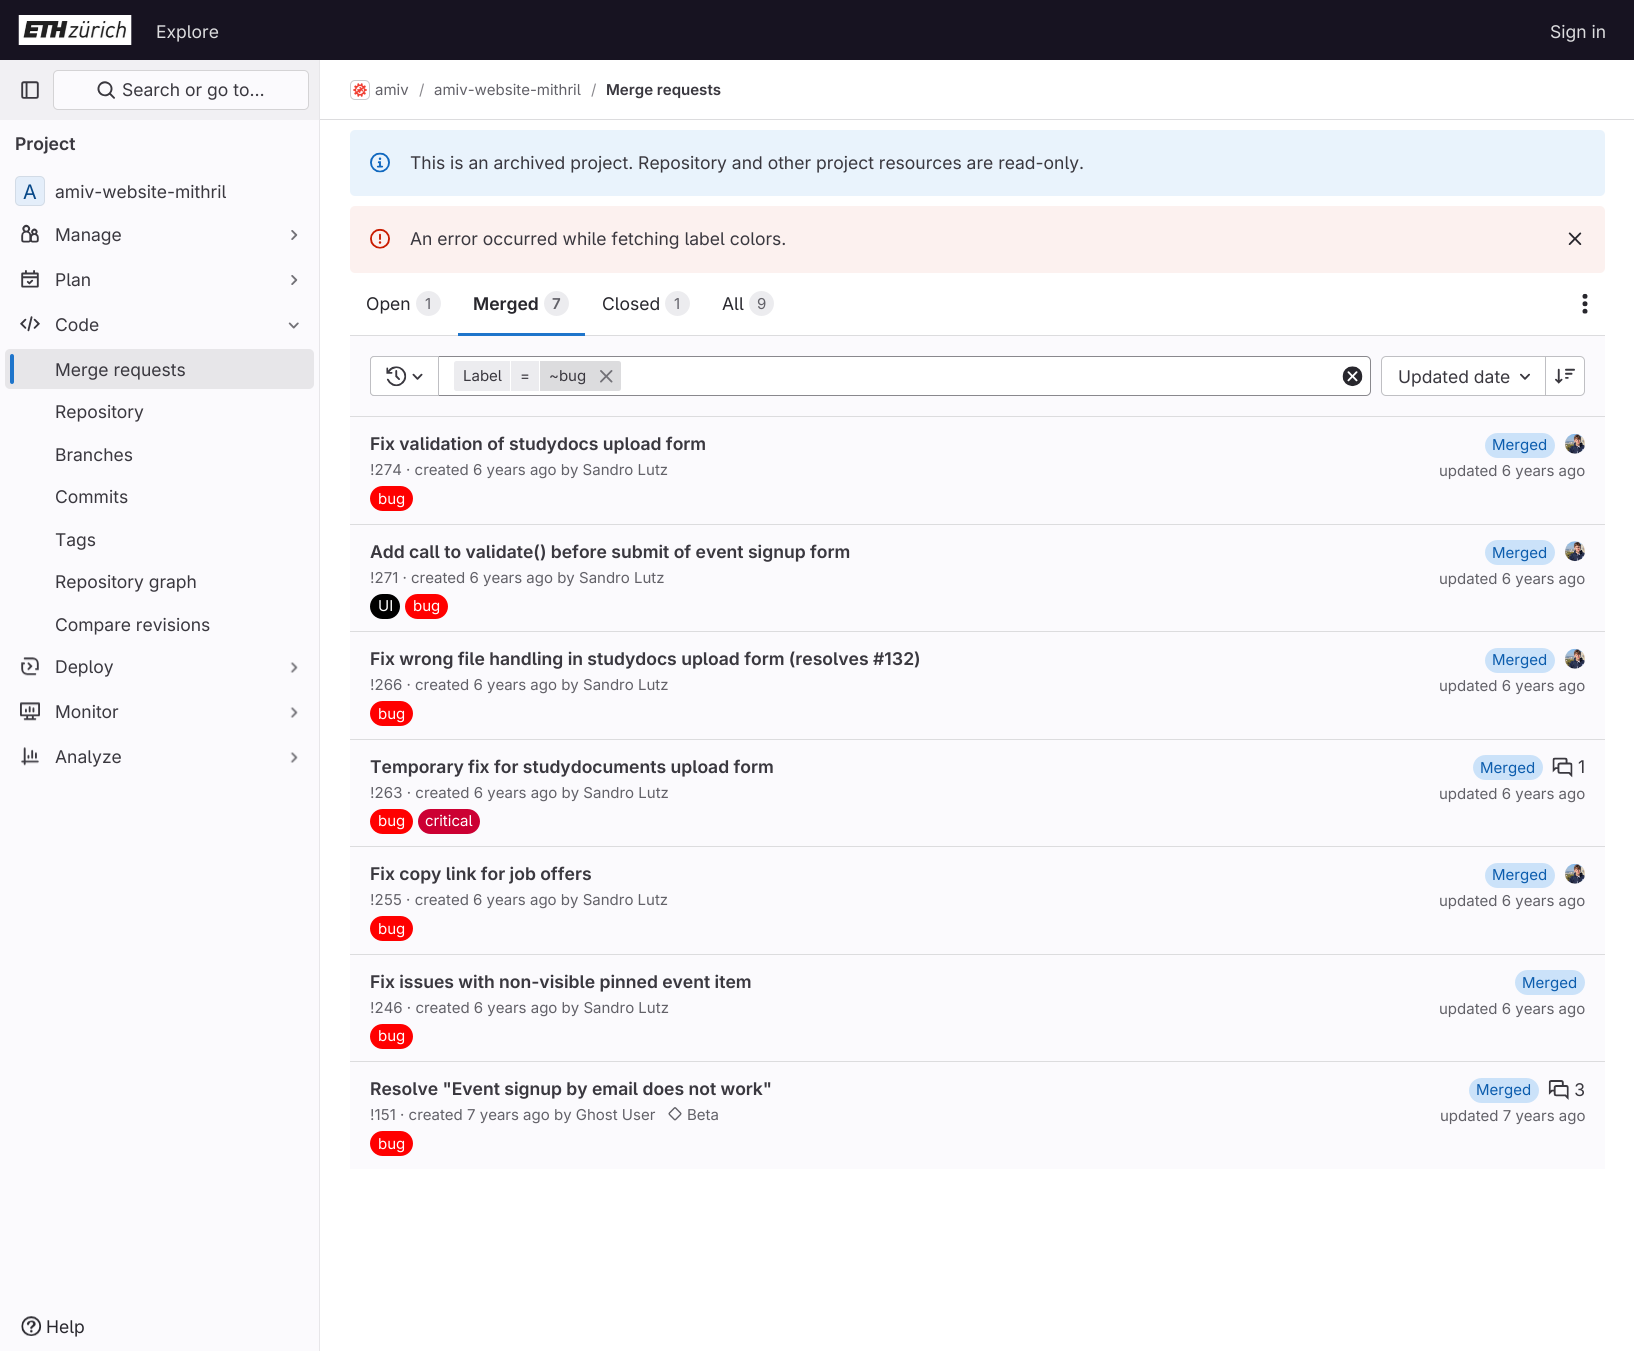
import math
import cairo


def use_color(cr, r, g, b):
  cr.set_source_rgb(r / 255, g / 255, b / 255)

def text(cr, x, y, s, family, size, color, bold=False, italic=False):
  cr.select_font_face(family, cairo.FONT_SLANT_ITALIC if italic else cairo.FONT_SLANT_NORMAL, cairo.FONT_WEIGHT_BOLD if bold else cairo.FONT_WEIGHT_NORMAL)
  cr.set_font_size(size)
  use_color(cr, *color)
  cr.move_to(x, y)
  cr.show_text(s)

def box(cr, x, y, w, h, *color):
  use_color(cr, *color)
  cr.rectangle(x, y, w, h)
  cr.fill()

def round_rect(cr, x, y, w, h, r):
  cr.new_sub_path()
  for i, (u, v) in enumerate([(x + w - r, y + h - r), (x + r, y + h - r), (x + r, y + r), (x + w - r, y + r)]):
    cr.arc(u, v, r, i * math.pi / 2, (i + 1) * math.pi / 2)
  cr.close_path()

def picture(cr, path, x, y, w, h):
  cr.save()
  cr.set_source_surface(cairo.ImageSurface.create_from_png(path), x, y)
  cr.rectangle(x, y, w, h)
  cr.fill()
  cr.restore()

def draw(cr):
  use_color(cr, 255, 255, 255)
  cr.paint()
  box(cr, 0, 0, 1634, 60, 23, 19, 33)
  picture(cr, "img_01.png", 18, 15, 114, 30)
  box(cr, 0, 120, 319, 1231, 251, 250, 253)
  box(cr, 319, 60, 1, 1291, 231, 230, 233)
  box(cr, 0, 60, 319, 60, 241, 240, 243)
  picture(cr, "img_02.png", 21, 81, 18, 18)
  use_color(cr, 251, 250, 253)
  round_rect(cr, 53, 70, 256, 40, 5)
  cr.fill()
  round_rect(cr, 53.5, 70.5, 255, 39, 4.5)
  cr.set_source_rgba(0.02, 0.02, 0.024, 0.16)
  cr.set_line_width(1)
  cr.stroke()
  picture(cr, "img_03.png", 97, 81, 18, 18)
  use_color(cr, 228, 238, 250)
  round_rect(cr, 15, 176, 30, 30, 5)
  cr.fill()
  round_rect(cr, 15.5, 176.5, 29, 29, 4.5)
  cr.set_source_rgba(0.02, 0.02, 0.024, 0.08)
  cr.stroke()
  picture(cr, "img_04.png", 21, 224, 18, 19)
  picture(cr, "img_05.png", 291, 230, 7, 10)
  picture(cr, "img_06.png", 21, 270, 18, 18)
  picture(cr, "img_05.png", 291, 275, 7, 10)
  picture(cr, "img_07.png", 20, 316, 20, 16)
  picture(cr, "img_08.png", 288, 322, 11, 7)
  use_color(cr, 231, 230, 233)
  round_rect(cr, 5, 349, 309, 40, 5)
  cr.fill()
  use_color(cr, 31, 117, 203)
  round_rect(cr, 10, 354, 4, 30, 2)
  cr.fill()
  picture(cr, "img_09.png", 21, 657, 18, 19)
  picture(cr, "img_10.png", 290, 662, 8, 11)
  picture(cr, "img_11.png", 20, 702, 20, 19)
  picture(cr, "img_10.png", 290, 707, 8, 11)
  picture(cr, "img_12.png", 21, 747, 18, 19)
  picture(cr, "img_10.png", 290, 752, 8, 11)
  picture(cr, "img_13.png", 21, 1316, 21, 20)
  box(cr, 320, 119, 1314, 1, 220, 220, 222)
  round_rect(cr, 350.5, 80.5, 19, 19, 4.5)
  cr.stroke()
  picture(cr, "img_14.png", 353, 83, 14, 14)
  round_rect(cr, 350.5, 80.5, 19, 19, 4.5)
  cr.set_source_rgba(0.02, 0.02, 0.024, 0.08)
  cr.stroke()
  use_color(cr, 233, 243, 252)
  round_rect(cr, 350, 130, 1255, 66, 5)
  cr.fill()
  picture(cr, "img_15.png", 370, 152, 20, 21)
  use_color(cr, 252, 241, 239)
  round_rect(cr, 350, 206, 1255, 67, 5)
  cr.fill()
  picture(cr, "img_16.png", 370, 228, 20, 21)
  picture(cr, "img_17.png", 1568, 232, 14, 13)
  use_color(cr, 236, 236, 239)
  cr.arc(428.5, 303.5, 12.5, 0, 2 * math.pi)
  cr.fill()
  cr.arc(556.5, 303.5, 12.5, 0, 2 * math.pi)
  cr.fill()
  box(cr, 350, 335, 1255, 1, 220, 220, 222)
  box(cr, 458, 333, 127, 3, 31, 117, 203)
  use_color(cr, 236, 236, 239)
  cr.arc(677.5, 303.5, 12.5, 0, 2 * math.pi)
  cr.fill()
  cr.arc(761.5, 303.5, 12.5, 0, 2 * math.pi)
  cr.fill()
  picture(cr, "img_18.png", 1582, 293, 6, 21)
  box(cr, 350, 336, 1255, 188, 251, 250, 253)
  box(cr, 350, 416, 1255, 1, 220, 220, 222)
  use_color(cr, 255, 255, 255)
  round_rect(cr, 370.5, 356.5, 1000, 39, 4.5)
  cr.fill_preserve()
  use_color(cr, 137, 136, 141)
  cr.stroke()
  use_color(cr, 255, 255, 255)
  cr.new_path()
  cr.move_to(374, 356.5)
  cr.line_to(438.5, 356.5)
  cr.line_to(438.5, 395.5)
  cr.line_to(374, 395.5)
  cr.curve_to(372, 395.5, 370.5, 394, 370.5, 392)
  cr.line_to(370.5, 360)
  cr.curve_to(370.5, 358, 372, 356.5, 374, 356.5)
  cr.close_path()
  cr.fill_preserve()
  use_color(cr, 191, 191, 195)
  cr.stroke()
  picture(cr, "img_19.png", 386, 366, 21, 21)
  picture(cr, "img_20.png", 412, 373, 11, 7)
  use_color(cr, 236, 236, 239)
  cr.new_path()
  cr.move_to(456.5, 361)
  cr.line_to(510, 361)
  cr.line_to(510, 391)
  cr.line_to(456.5, 391)
  cr.curve_to(455, 391, 454, 390, 454, 388.5)
  cr.line_to(454, 363.5)
  cr.curve_to(454, 362, 455, 361, 456.5, 361)
  cr.close_path()
  cr.fill()
  box(cr, 511, 361, 28, 30, 236, 236, 239)
  use_color(cr, 220, 220, 222)
  cr.new_path()
  cr.move_to(540, 361)
  cr.line_to(618.5, 361)
  cr.curve_to(620, 361, 621, 362, 621, 363.5)
  cr.line_to(621, 388.5)
  cr.curve_to(621, 390, 620, 391, 618.5, 391)
  cr.line_to(540, 391)
  cr.close_path()
  cr.fill()
  picture(cr, "img_21.png", 600, 370, 13, 13)
  picture(cr, "img_22.png", 1342, 366, 21, 21)
  use_color(cr, 255, 255, 255)
  cr.new_path()
  cr.move_to(1386, 356.5)
  cr.line_to(1545.5, 356.5)
  cr.line_to(1545.5, 395.5)
  cr.line_to(1386, 395.5)
  cr.curve_to(1383.5, 395.5, 1381.5, 393.5, 1381.5, 391)
  cr.line_to(1381.5, 361)
  cr.curve_to(1381.5, 358.5, 1383.5, 356.5, 1386, 356.5)
  cr.close_path()
  cr.fill_preserve()
  use_color(cr, 191, 191, 195)
  cr.stroke()
  picture(cr, "img_23.png", 1520, 373, 10, 7)
  use_color(cr, 255, 255, 255)
  cr.new_path()
  cr.move_to(1545.5, 356.5)
  cr.line_to(1580, 356.5)
  cr.curve_to(1582.5, 356.5, 1584.5, 358.5, 1584.5, 361)
  cr.line_to(1584.5, 391)
  cr.curve_to(1584.5, 393.5, 1582.5, 395.5, 1580, 395.5)
  cr.line_to(1545.5, 395.5)
  cr.close_path()
  cr.fill_preserve()
  use_color(cr, 191, 191, 195)
  cr.stroke()
  picture(cr, "img_24.png", 1555, 368, 20, 16)
  box(cr, 350, 524, 1255, 1, 220, 220, 222)
  use_color(cr, 255, 0, 0)
  round_rect(cr, 370, 486, 43, 25, 12.5)
  cr.fill()
  use_color(cr, 203, 226, 249)
  round_rect(cr, 1485, 433, 70, 25, 12.5)
  cr.fill()
  cr.arc(1575, 444, 9.5, 0, 2 * math.pi)
  use_color(cr, 231, 230, 233)
  cr.stroke()
  picture(cr, "img_25.png", 1565, 433, 20, 21)
  box(cr, 350, 525, 1255, 214, 251, 250, 253)
  box(cr, 350, 631, 1255, 1, 220, 220, 222)
  use_color(cr, 0, 0, 0)
  round_rect(cr, 370, 594, 30, 25, 12.5)
  cr.fill()
  use_color(cr, 255, 0, 0)
  round_rect(cr, 405, 594, 43, 25, 12.5)
  cr.fill()
  use_color(cr, 203, 226, 249)
  round_rect(cr, 1485, 540, 70, 25, 12.5)
  cr.fill()
  cr.arc(1575, 551, 9.5, 0, 2 * math.pi)
  use_color(cr, 231, 230, 233)
  cr.stroke()
  picture(cr, "img_26.png", 1565, 541, 20, 21)
  box(cr, 350, 739, 1255, 1, 220, 220, 222)
  use_color(cr, 255, 0, 0)
  round_rect(cr, 370, 701, 43, 25, 12.5)
  cr.fill()
  use_color(cr, 203, 226, 249)
  round_rect(cr, 1485, 648, 70, 25, 12.5)
  cr.fill()
  cr.arc(1575, 659, 9.5, 0, 2 * math.pi)
  use_color(cr, 231, 230, 233)
  cr.stroke()
  picture(cr, "img_25.png", 1565, 648, 20, 21)
  box(cr, 350, 740, 1255, 214, 251, 250, 253)
  box(cr, 350, 846, 1255, 1, 220, 220, 222)
  use_color(cr, 255, 0, 0)
  round_rect(cr, 370, 809, 43, 25, 12.5)
  cr.fill()
  use_color(cr, 204, 0, 51)
  round_rect(cr, 418, 809, 62, 25, 12.5)
  cr.fill()
  use_color(cr, 203, 226, 249)
  round_rect(cr, 1473, 755, 70, 25, 12.5)
  cr.fill()
  picture(cr, "img_27.png", 1552, 757, 21, 21)
  box(cr, 350, 954, 1255, 1, 220, 220, 222)
  use_color(cr, 255, 0, 0)
  round_rect(cr, 370, 916, 43, 25, 12.5)
  cr.fill()
  use_color(cr, 203, 226, 249)
  round_rect(cr, 1485, 863, 70, 25, 12.5)
  cr.fill()
  cr.arc(1575, 874, 9.5, 0, 2 * math.pi)
  use_color(cr, 231, 230, 233)
  cr.stroke()
  picture(cr, "img_25.png", 1565, 863, 20, 21)
  box(cr, 350, 955, 1255, 214, 251, 250, 253)
  box(cr, 350, 1061, 1255, 1, 220, 220, 222)
  use_color(cr, 255, 0, 0)
  round_rect(cr, 370, 1024, 43, 25, 12.5)
  cr.fill()
  use_color(cr, 203, 226, 249)
  round_rect(cr, 1515, 970, 70, 25, 12.5)
  cr.fill()
  picture(cr, "img_28.png", 668, 1107, 14, 14)
  use_color(cr, 255, 0, 0)
  round_rect(cr, 370, 1131, 43, 25, 12.5)
  cr.fill()
  use_color(cr, 203, 226, 249)
  round_rect(cr, 1469, 1078, 70, 25, 12.5)
  cr.fill()
  picture(cr, "img_29.png", 1548, 1080, 21, 20)
  text(cr, 156, 38, "Explore", "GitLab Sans", 17.5, (220, 220, 222))
  text(cr, 1550, 38, "Sign in", "GitLab Sans", 17.5, (220, 220, 222))
  text(cr, 122, 96, "Search or go to…", "GitLab Sans", 17.5, (58, 56, 63))
  text(cr, 15, 150, "Project", "GitLab Sans SemiBold", 17.5, (58, 56, 63))
  text(cr, 23, 199, "A", "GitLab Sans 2", 20, (6, 71, 135))
  text(cr, 55, 198, "amiv-website-mithril", "GitLab Sans", 17.5, (58, 56, 63))
  text(cr, 55, 241, "Manage", "GitLab Sans", 17.5, (58, 56, 63))
  text(cr, 55, 286, "Plan", "GitLab Sans", 17.5, (58, 56, 63))
  text(cr, 55, 331, "Code", "GitLab Sans", 17.5, (58, 56, 63))
  text(cr, 55, 376, "Merge requests", "GitLab Sans", 17.5, (58, 56, 63))
  text(cr, 55, 418, "Repository", "GitLab Sans", 17.5, (58, 56, 63))
  text(cr, 55, 461, "Branches", "GitLab Sans", 17.5, (58, 56, 63))
  text(cr, 55, 503, "Commits", "GitLab Sans", 17.5, (58, 56, 63))
  text(cr, 55, 546, "Tags", "GitLab Sans", 17.5, (58, 56, 63))
  text(cr, 55, 588, "Repository graph", "GitLab Sans", 17.5, (58, 56, 63))
  text(cr, 55, 631, "Compare revisions", "GitLab Sans", 17.5, (58, 56, 63))
  text(cr, 55, 673, "Deploy", "GitLab Sans", 17.5, (58, 56, 63))
  text(cr, 55, 718, "Monitor", "GitLab Sans", 17.5, (58, 56, 63))
  text(cr, 55, 763, "Analyze", "GitLab Sans", 17.5, (58, 56, 63))
  text(cr, 46, 1333, "Help", "GitLab Sans", 17.5, (40, 39, 45))
  text(cr, 375, 95, "amiv", "GitLab Sans", 15, (98, 97, 104))
  text(cr, 419, 95, "/", "GitLab Sans", 15, (137, 136, 141))
  text(cr, 434, 95, "amiv-website-mithril", "GitLab Sans", 15, (98, 97, 104))
  text(cr, 591, 95, "/", "GitLab Sans", 15, (137, 136, 141))
  text(cr, 606, 95, "Merge requests", "GitLab Sans SemiBold", 15, (58, 56, 63))
  text(cr, 410, 169, "This is an archived project. Repository and other project resources are read-only.", "GitLab Sans", 17.5, (58, 56, 63))
  text(cr, 410, 245, "An error occurred while fetching label colors.", "GitLab Sans", 17.5, (58, 56, 63))
  text(cr, 366, 310, "Open", "GitLab Sans", 17.5, (40, 39, 45))
  text(cr, 425, 309, "1", "GitLab Sans", 15, (98, 97, 104))
  text(cr, 473, 310, "Merged", "GitLab Sans SemiBold", 17.5, (40, 39, 45))
  text(cr, 552, 309, "7", "GitLab Sans SemiBold", 15, (98, 97, 104))
  text(cr, 602, 310, "Closed", "GitLab Sans", 17.5, (40, 39, 45))
  text(cr, 674, 309, "1", "GitLab Sans", 15, (98, 97, 104))
  text(cr, 722, 310, "All", "GitLab Sans", 17.5, (40, 39, 45))
  text(cr, 757, 309, "9", "GitLab Sans", 15, (98, 97, 104))
  text(cr, 463, 381, "Label", "GitLab Sans", 15, (58, 56, 63))
  text(cr, 520, 381, "=", "GitLab Sans", 15, (58, 56, 63))
  text(cr, 549, 381, "~bug", "GitLab Sans", 15, (58, 56, 63))
  text(cr, 1398, 383, "Updated date", "GitLab Sans", 17.5, (58, 56, 63))
  text(cr, 370, 450, "Fix validation of studydocs upload form", "GitLab Sans SemiBold", 17.5, (58, 56, 63))
  text(cr, 370, 475, "!274 · created 6 years ago by Sandro Lutz", "GitLab Sans", 15, (98, 97, 104))
  text(cr, 378, 504, "bug", "GitLab Sans", 15, (255, 255, 255))
  text(cr, 1492, 450, "Merged", "GitLab Sans", 15, (11, 92, 173))
  text(cr, 1439, 476, "updated 6 years ago", "GitLab Sans", 15, (98, 97, 104))
  text(cr, 370, 558, "Add call to validate() before submit of event signup form", "GitLab Sans SemiBold", 17.5, (58, 56, 63))
  text(cr, 370, 583, "!271 · created 6 years ago by Sandro Lutz", "GitLab Sans", 15, (98, 97, 104))
  text(cr, 378, 611, "UI", "GitLab Sans", 15, (255, 255, 255))
  text(cr, 413, 611, "bug", "GitLab Sans", 15, (255, 255, 255))
  text(cr, 1492, 558, "Merged", "GitLab Sans", 15, (11, 92, 173))
  text(cr, 1439, 584, "updated 6 years ago", "GitLab Sans", 15, (98, 97, 104))
  text(cr, 370, 665, "Fix wrong file handling in studydocs upload form (resolves #132)", "GitLab Sans SemiBold", 17.5, (58, 56, 63))
  text(cr, 370, 690, "!266 · created 6 years ago by Sandro Lutz", "GitLab Sans", 15, (98, 97, 104))
  text(cr, 378, 719, "bug", "GitLab Sans", 15, (255, 255, 255))
  text(cr, 1492, 665, "Merged", "GitLab Sans", 15, (11, 92, 173))
  text(cr, 1439, 691, "updated 6 years ago", "GitLab Sans", 15, (98, 97, 104))
  text(cr, 370, 773, "Temporary fix for studydocuments upload form", "GitLab Sans SemiBold", 17.5, (58, 56, 63))
  text(cr, 370, 798, "!263 · created 6 years ago by Sandro Lutz", "GitLab Sans", 15, (98, 97, 104))
  text(cr, 378, 826, "bug", "GitLab Sans", 15, (255, 255, 255))
  text(cr, 425, 826, "critical", "GitLab Sans", 15, (255, 255, 255))
  text(cr, 1480, 773, "Merged", "GitLab Sans", 15, (11, 92, 173))
  text(cr, 1578, 773, "1", "GitLab Sans", 17.5, (58, 56, 63))
  text(cr, 1439, 799, "updated 6 years ago", "GitLab Sans", 15, (98, 97, 104))
  text(cr, 370, 880, "Fix copy link for job offers", "GitLab Sans SemiBold", 17.5, (58, 56, 63))
  text(cr, 370, 905, "!255 · created 6 years ago by Sandro Lutz", "GitLab Sans", 15, (98, 97, 104))
  text(cr, 378, 934, "bug", "GitLab Sans", 15, (255, 255, 255))
  text(cr, 1492, 880, "Merged", "GitLab Sans", 15, (11, 92, 173))
  text(cr, 1439, 906, "updated 6 years ago", "GitLab Sans", 15, (98, 97, 104))
  text(cr, 370, 988, "Fix issues with non-visible pinned event item", "GitLab Sans SemiBold", 17.5, (58, 56, 63))
  text(cr, 370, 1013, "!246 · created 6 years ago by Sandro Lutz", "GitLab Sans", 15, (98, 97, 104))
  text(cr, 378, 1041, "bug", "GitLab Sans", 15, (255, 255, 255))
  text(cr, 1522, 988, "Merged", "GitLab Sans", 15, (11, 92, 173))
  text(cr, 1439, 1014, "updated 6 years ago", "GitLab Sans", 15, (98, 97, 104))
  text(cr, 370, 1095, "Resolve \"Event signup by email does not work\"", "GitLab Sans SemiBold", 17.5, (58, 56, 63))
  text(cr, 370, 1120, "!151 · created 7 years ago by Ghost User", "GitLab Sans", 15, (98, 97, 104))
  text(cr, 687, 1120, "Beta", "GitLab Sans", 15, (98, 97, 104))
  text(cr, 378, 1149, "bug", "GitLab Sans", 15, (255, 255, 255))
  text(cr, 1476, 1095, "Merged", "GitLab Sans", 15, (11, 92, 173))
  text(cr, 1574, 1096, "3", "GitLab Sans", 17.5, (58, 56, 63))
  text(cr, 1440, 1121, "updated 7 years ago", "GitLab Sans", 15, (98, 97, 104))


surface = cairo.ImageSurface(cairo.FORMAT_RGB24, 1634, 1351)
cr = cairo.Context(surface)
options = cairo.FontOptions()
options.set_hint_metrics(cairo.HINT_METRICS_OFF)
options.set_hint_style(cairo.HINT_STYLE_NONE)
cr.set_font_options(options)
cr.set_miter_limit(4)
draw(cr)
surface.write_to_png("out.png")
